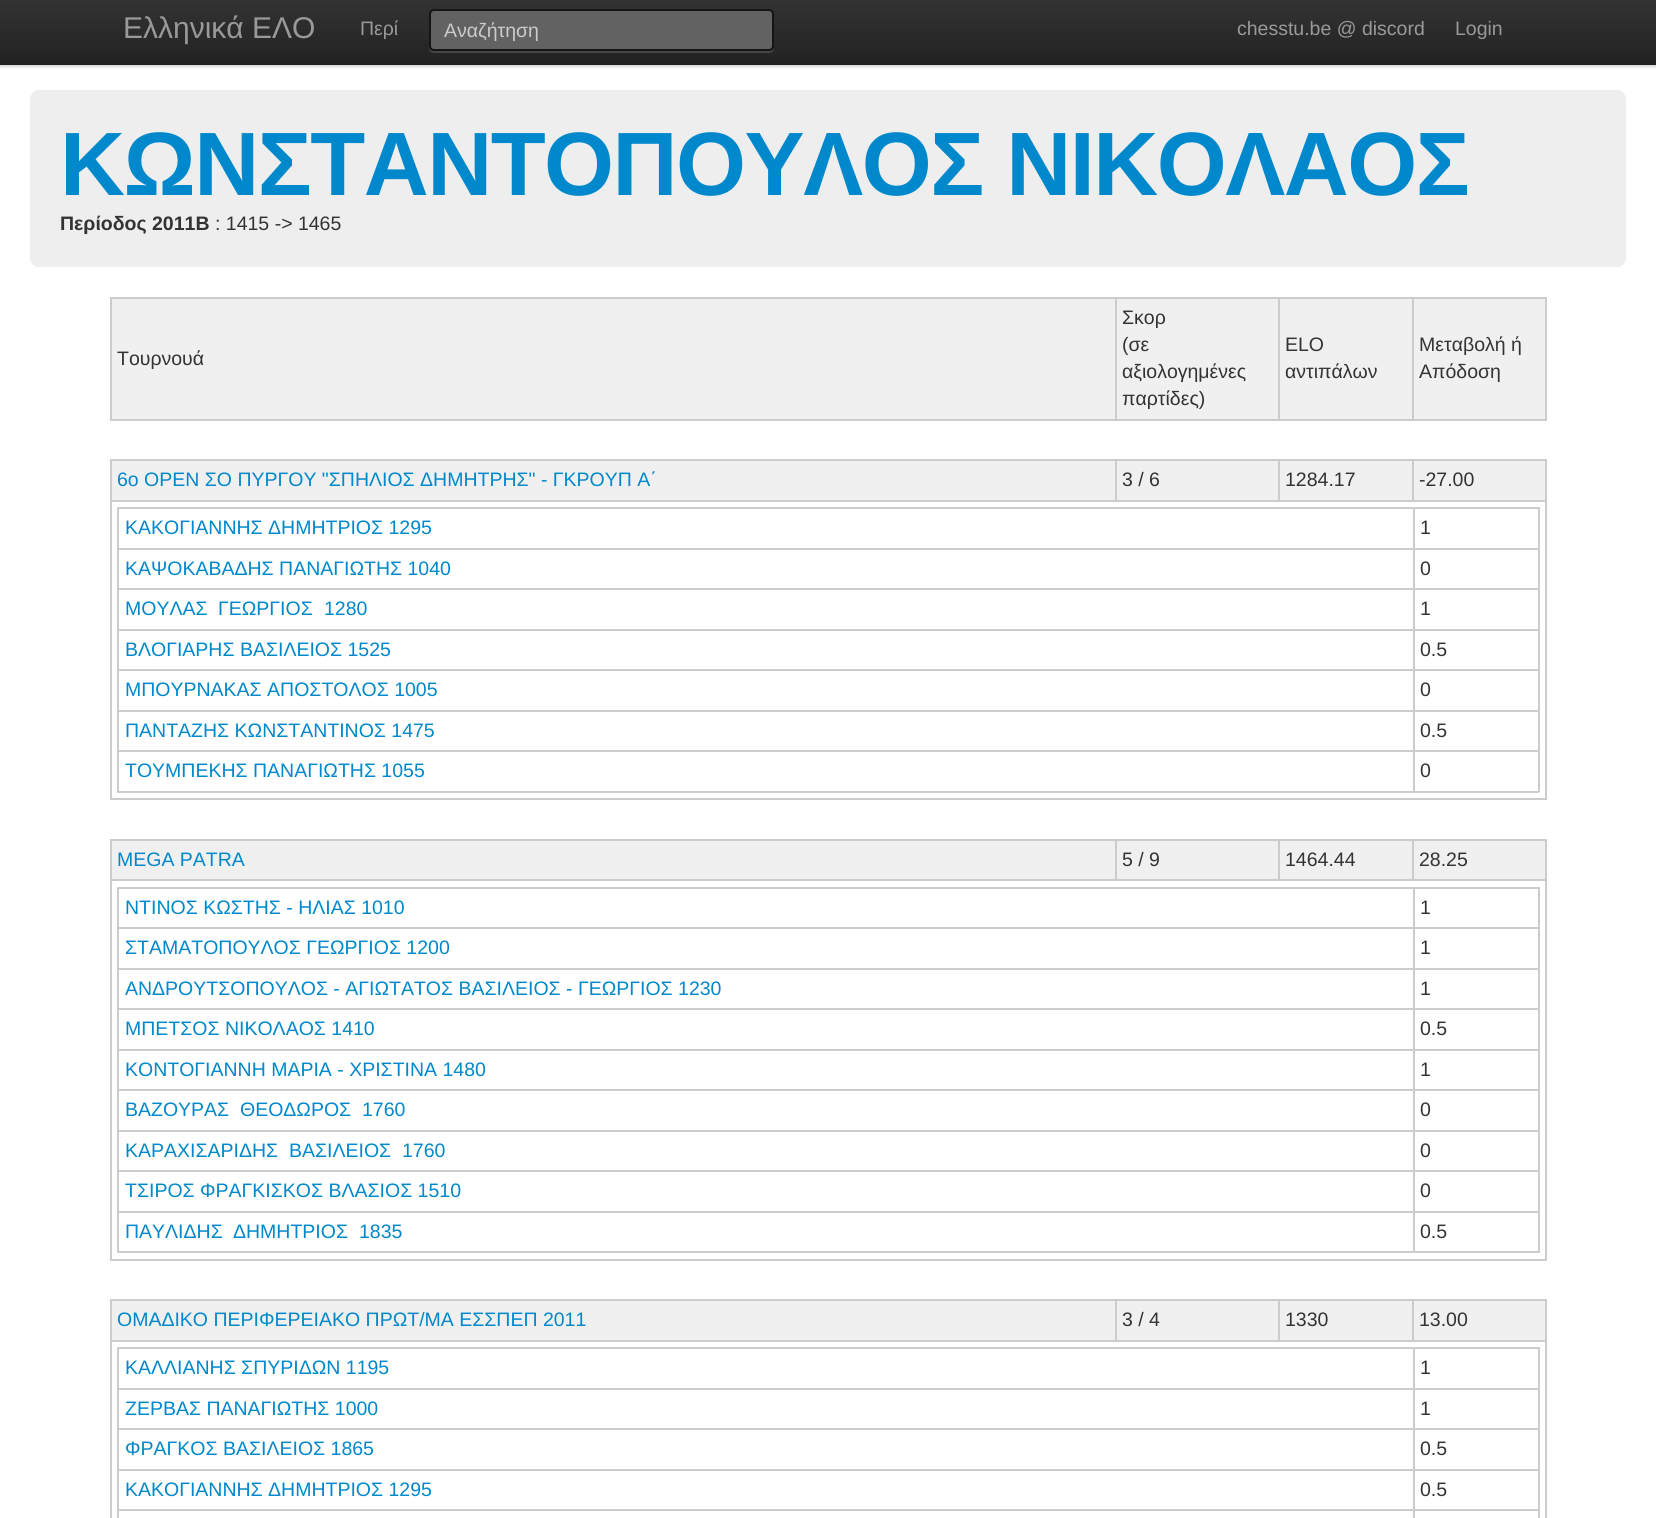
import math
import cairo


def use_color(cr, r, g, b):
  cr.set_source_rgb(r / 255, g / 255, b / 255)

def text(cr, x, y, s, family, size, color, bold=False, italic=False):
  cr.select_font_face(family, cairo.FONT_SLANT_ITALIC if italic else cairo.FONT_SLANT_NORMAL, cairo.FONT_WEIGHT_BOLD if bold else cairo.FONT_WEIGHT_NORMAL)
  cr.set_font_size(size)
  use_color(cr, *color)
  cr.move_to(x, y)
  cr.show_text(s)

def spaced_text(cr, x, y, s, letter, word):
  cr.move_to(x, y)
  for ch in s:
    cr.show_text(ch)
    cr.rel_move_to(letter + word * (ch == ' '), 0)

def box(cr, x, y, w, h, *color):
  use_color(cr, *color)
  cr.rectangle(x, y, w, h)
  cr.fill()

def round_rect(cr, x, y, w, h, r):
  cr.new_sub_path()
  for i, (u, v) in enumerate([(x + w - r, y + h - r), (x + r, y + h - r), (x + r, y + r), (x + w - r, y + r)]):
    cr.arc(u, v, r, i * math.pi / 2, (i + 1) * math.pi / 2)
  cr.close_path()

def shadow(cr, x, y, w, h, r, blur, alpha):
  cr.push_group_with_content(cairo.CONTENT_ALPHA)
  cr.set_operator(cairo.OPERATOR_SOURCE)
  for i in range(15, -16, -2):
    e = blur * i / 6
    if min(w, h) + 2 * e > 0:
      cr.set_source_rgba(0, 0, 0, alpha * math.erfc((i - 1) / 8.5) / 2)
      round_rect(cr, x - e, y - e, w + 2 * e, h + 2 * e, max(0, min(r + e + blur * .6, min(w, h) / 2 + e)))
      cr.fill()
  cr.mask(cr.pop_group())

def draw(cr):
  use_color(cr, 255, 255, 255)
  cr.paint()
  use_color(cr, 0, 0, 0)
  shadow(cr, 0, 2, 1656, 64, 0, 2, 0.25)
  gradient = cairo.LinearGradient(828, 0, 828, 65)
  gradient.add_color_stop_rgba(0, 0.2, 0.2, 0.2, 1)
  gradient.add_color_stop_rgba(1, 0.133, 0.133, 0.133, 1)
  cr.set_source(gradient)
  cr.rectangle(0, 0, 1656, 63)
  cr.fill()
  box(cr, 0, 63, 1656, 2, 31, 31, 31)
  use_color(cr, 70, 70, 70)
  cr.new_path()
  cr.move_to(429, 46)
  cr.line_to(429, 48)
  cr.curve_to(429, 51, 431, 53, 434, 53)
  cr.line_to(769, 53)
  cr.curve_to(772, 53, 774, 51, 774, 48)
  cr.line_to(774, 46)
  cr.curve_to(774, 49, 772, 51, 770, 51)
  cr.line_to(434, 51)
  cr.curve_to(431, 51, 429, 49, 429, 46)
  cr.close_path()
  cr.fill()
  use_color(cr, 98, 98, 98)
  round_rect(cr, 430, 10, 343, 40, 4)
  cr.fill_preserve()
  use_color(cr, 21, 21, 21)
  cr.stroke()
  use_color(cr, 238, 238, 238)
  round_rect(cr, 30, 90, 1596, 177, 9)
  cr.fill()
  box(cr, 112, 299, 1433, 120, 240, 240, 240)
  box(cr, 1412, 297, 135, 2, 204, 204, 204)
  box(cr, 1545, 297, 2, 123, 204, 204, 204)
  box(cr, 1412, 419, 135, 2, 204, 204, 204)
  box(cr, 1412, 297, 2, 123, 204, 204, 204)
  box(cr, 1278, 297, 135, 2, 204, 204, 204)
  box(cr, 1278, 419, 135, 2, 204, 204, 204)
  box(cr, 1278, 297, 2, 123, 204, 204, 204)
  box(cr, 1115, 297, 165, 2, 204, 204, 204)
  box(cr, 1115, 419, 165, 2, 204, 204, 204)
  box(cr, 1115, 297, 2, 123, 204, 204, 204)
  box(cr, 110, 297, 1006, 2, 204, 204, 204)
  box(cr, 110, 419, 1006, 2, 204, 204, 204)
  box(cr, 110, 297, 2, 123, 204, 204, 204)
  box(cr, 112, 461, 1433, 39, 240, 240, 240)
  box(cr, 1412, 459, 135, 2, 204, 204, 204)
  box(cr, 110, 500, 1437, 2, 204, 204, 204)
  box(cr, 1412, 459, 2, 42, 204, 204, 204)
  box(cr, 1278, 459, 135, 2, 204, 204, 204)
  box(cr, 1278, 459, 2, 42, 204, 204, 204)
  box(cr, 1115, 459, 165, 2, 204, 204, 204)
  box(cr, 1115, 459, 2, 42, 204, 204, 204)
  box(cr, 110, 459, 1006, 2, 204, 204, 204)
  box(cr, 1545, 500, 2, 300, 204, 204, 204)
  box(cr, 110, 798, 1437, 2, 204, 204, 204)
  box(cr, 110, 500, 2, 300, 204, 204, 204)
  box(cr, 110, 459, 2, 42, 204, 204, 204)
  box(cr, 1545, 459, 2, 42, 204, 204, 204)
  box(cr, 1413, 507, 126, 2, 204, 204, 204)
  box(cr, 1413, 548, 126, 2, 204, 204, 204)
  box(cr, 1413, 588, 126, 2, 204, 204, 204)
  box(cr, 1413, 629, 126, 2, 204, 204, 204)
  box(cr, 1413, 669, 126, 2, 204, 204, 204)
  box(cr, 1413, 710, 126, 2, 204, 204, 204)
  box(cr, 1413, 750, 126, 2, 204, 204, 204)
  box(cr, 1538, 750, 2, 42, 204, 204, 204)
  box(cr, 1413, 791, 126, 2, 204, 204, 204)
  box(cr, 1413, 750, 2, 42, 204, 204, 204)
  box(cr, 117, 750, 1298, 2, 204, 204, 204)
  box(cr, 1413, 710, 2, 42, 204, 204, 204)
  box(cr, 117, 710, 1298, 2, 204, 204, 204)
  box(cr, 1413, 669, 2, 42, 204, 204, 204)
  box(cr, 117, 669, 1298, 2, 204, 204, 204)
  box(cr, 1413, 629, 2, 42, 204, 204, 204)
  box(cr, 117, 629, 1298, 2, 204, 204, 204)
  box(cr, 1413, 588, 2, 42, 204, 204, 204)
  box(cr, 117, 588, 1298, 2, 204, 204, 204)
  box(cr, 1413, 548, 2, 42, 204, 204, 204)
  box(cr, 117, 548, 1298, 2, 204, 204, 204)
  box(cr, 1413, 507, 2, 42, 204, 204, 204)
  box(cr, 117, 507, 1298, 2, 204, 204, 204)
  box(cr, 117, 791, 1298, 2, 204, 204, 204)
  box(cr, 117, 750, 2, 42, 204, 204, 204)
  box(cr, 117, 710, 2, 42, 204, 204, 204)
  box(cr, 117, 669, 2, 42, 204, 204, 204)
  box(cr, 117, 629, 2, 42, 204, 204, 204)
  box(cr, 117, 588, 2, 42, 204, 204, 204)
  box(cr, 117, 548, 2, 42, 204, 204, 204)
  box(cr, 117, 507, 2, 42, 204, 204, 204)
  box(cr, 1538, 710, 2, 42, 204, 204, 204)
  box(cr, 1538, 669, 2, 42, 204, 204, 204)
  box(cr, 1538, 629, 2, 42, 204, 204, 204)
  box(cr, 1538, 588, 2, 42, 204, 204, 204)
  box(cr, 1538, 548, 2, 42, 204, 204, 204)
  box(cr, 1538, 507, 2, 42, 204, 204, 204)
  box(cr, 112, 841, 1433, 38, 240, 240, 240)
  box(cr, 1412, 839, 135, 2, 204, 204, 204)
  box(cr, 110, 879, 1437, 2, 204, 204, 204)
  box(cr, 1412, 839, 2, 42, 204, 204, 204)
  box(cr, 1278, 839, 135, 2, 204, 204, 204)
  box(cr, 1278, 839, 2, 42, 204, 204, 204)
  box(cr, 1115, 839, 165, 2, 204, 204, 204)
  box(cr, 1115, 839, 2, 42, 204, 204, 204)
  box(cr, 110, 839, 1006, 2, 204, 204, 204)
  box(cr, 1545, 879, 2, 381, 204, 204, 204)
  box(cr, 110, 1259, 1437, 2, 204, 204, 204)
  box(cr, 110, 879, 2, 381, 204, 204, 204)
  box(cr, 110, 839, 2, 42, 204, 204, 204)
  box(cr, 1545, 839, 2, 42, 204, 204, 204)
  box(cr, 1413, 887, 126, 2, 204, 204, 204)
  box(cr, 1413, 927, 126, 2, 204, 204, 204)
  box(cr, 1413, 968, 126, 2, 204, 204, 204)
  box(cr, 1413, 1008, 126, 2, 204, 204, 204)
  box(cr, 1413, 1049, 126, 2, 204, 204, 204)
  box(cr, 1413, 1089, 126, 2, 204, 204, 204)
  box(cr, 1413, 1130, 126, 2, 204, 204, 204)
  box(cr, 1413, 1170, 126, 2, 204, 204, 204)
  box(cr, 1413, 1211, 126, 2, 204, 204, 204)
  box(cr, 1538, 1211, 2, 42, 204, 204, 204)
  box(cr, 1413, 1251, 126, 2, 204, 204, 204)
  box(cr, 1413, 1211, 2, 42, 204, 204, 204)
  box(cr, 117, 1211, 1298, 2, 204, 204, 204)
  box(cr, 1413, 1170, 2, 42, 204, 204, 204)
  box(cr, 117, 1170, 1298, 2, 204, 204, 204)
  box(cr, 1413, 1130, 2, 42, 204, 204, 204)
  box(cr, 117, 1130, 1298, 2, 204, 204, 204)
  box(cr, 1413, 1089, 2, 42, 204, 204, 204)
  box(cr, 117, 1089, 1298, 2, 204, 204, 204)
  box(cr, 1413, 1049, 2, 42, 204, 204, 204)
  box(cr, 117, 1049, 1298, 2, 204, 204, 204)
  box(cr, 1413, 1008, 2, 42, 204, 204, 204)
  box(cr, 117, 1008, 1298, 2, 204, 204, 204)
  box(cr, 1413, 968, 2, 42, 204, 204, 204)
  box(cr, 117, 968, 1298, 2, 204, 204, 204)
  box(cr, 1413, 927, 2, 42, 204, 204, 204)
  box(cr, 117, 927, 1298, 2, 204, 204, 204)
  box(cr, 1413, 887, 2, 42, 204, 204, 204)
  box(cr, 117, 887, 1298, 2, 204, 204, 204)
  box(cr, 117, 1251, 1298, 2, 204, 204, 204)
  box(cr, 117, 1211, 2, 42, 204, 204, 204)
  box(cr, 117, 1170, 2, 42, 204, 204, 204)
  box(cr, 117, 1130, 2, 42, 204, 204, 204)
  box(cr, 117, 1089, 2, 42, 204, 204, 204)
  box(cr, 117, 1049, 2, 42, 204, 204, 204)
  box(cr, 117, 1008, 2, 42, 204, 204, 204)
  box(cr, 117, 968, 2, 42, 204, 204, 204)
  box(cr, 117, 927, 2, 42, 204, 204, 204)
  box(cr, 117, 887, 2, 42, 204, 204, 204)
  box(cr, 1538, 1170, 2, 42, 204, 204, 204)
  box(cr, 1538, 1130, 2, 42, 204, 204, 204)
  box(cr, 1538, 1089, 2, 42, 204, 204, 204)
  box(cr, 1538, 1049, 2, 42, 204, 204, 204)
  box(cr, 1538, 1008, 2, 42, 204, 204, 204)
  box(cr, 1538, 968, 2, 42, 204, 204, 204)
  box(cr, 1538, 927, 2, 42, 204, 204, 204)
  box(cr, 1538, 887, 2, 42, 204, 204, 204)
  box(cr, 112, 1301, 1433, 39, 240, 240, 240)
  box(cr, 1412, 1299, 135, 2, 204, 204, 204)
  box(cr, 110, 1340, 1437, 2, 204, 204, 204)
  box(cr, 1412, 1299, 2, 42, 204, 204, 204)
  box(cr, 1278, 1299, 135, 2, 204, 204, 204)
  box(cr, 1278, 1299, 2, 42, 204, 204, 204)
  box(cr, 1115, 1299, 165, 2, 204, 204, 204)
  box(cr, 1115, 1299, 2, 42, 204, 204, 204)
  box(cr, 110, 1299, 1006, 2, 204, 204, 204)
  box(cr, 110, 1340, 2, 178, 204, 204, 204)
  box(cr, 110, 1299, 2, 42, 204, 204, 204)
  box(cr, 1545, 1340, 2, 178, 204, 204, 204)
  box(cr, 1545, 1299, 2, 42, 204, 204, 204)
  box(cr, 1413, 1347, 126, 2, 204, 204, 204)
  box(cr, 1413, 1388, 126, 2, 204, 204, 204)
  box(cr, 1413, 1428, 126, 2, 204, 204, 204)
  box(cr, 1413, 1469, 126, 2, 204, 204, 204)
  box(cr, 1413, 1509, 126, 2, 204, 204, 204)
  box(cr, 1413, 1509, 2, 9, 204, 204, 204)
  box(cr, 117, 1509, 1298, 2, 204, 204, 204)
  box(cr, 1413, 1469, 2, 42, 204, 204, 204)
  box(cr, 117, 1469, 1298, 2, 204, 204, 204)
  box(cr, 1413, 1428, 2, 42, 204, 204, 204)
  box(cr, 117, 1428, 1298, 2, 204, 204, 204)
  box(cr, 1413, 1388, 2, 42, 204, 204, 204)
  box(cr, 117, 1388, 1298, 2, 204, 204, 204)
  box(cr, 1413, 1347, 2, 42, 204, 204, 204)
  box(cr, 117, 1347, 1298, 2, 204, 204, 204)
  box(cr, 117, 1509, 2, 9, 204, 204, 204)
  box(cr, 117, 1469, 2, 42, 204, 204, 204)
  box(cr, 117, 1428, 2, 42, 204, 204, 204)
  box(cr, 117, 1388, 2, 42, 204, 204, 204)
  box(cr, 117, 1347, 2, 42, 204, 204, 204)
  box(cr, 1538, 1509, 2, 9, 204, 204, 204)
  box(cr, 1538, 1469, 2, 42, 204, 204, 204)
  box(cr, 1538, 1428, 2, 42, 204, 204, 204)
  box(cr, 1538, 1388, 2, 42, 204, 204, 204)
  box(cr, 1538, 1347, 2, 42, 204, 204, 204)
  text(cr, 123, 38, "Ελληνικά ΕΛΟ", "Liberation Sans", 30, (153, 153, 153))
  text(cr, 360, 35, "Περί", "Liberation Sans", 19.5, (153, 153, 153))
  text(cr, 444, 37, "Αναζήτηση", "Liberation Sans", 19.5, (204, 204, 204))
  text(cr, 1237, 35, "chesstu.be @ discord", "Liberation Sans", 19.5, (153, 153, 153))
  text(cr, 1455, 35, "Login", "Liberation Sans", 19.5, (153, 153, 153))
  cr.select_font_face("Liberation Sans", cairo.FONT_SLANT_NORMAL, cairo.FONT_WEIGHT_BOLD)
  cr.set_font_size(90)
  use_color(cr, 0, 136, 204)
  spaced_text(cr, 60, 195, "ΚΩΝΣΤΑΝΤΟΠΟΥΛΟΣ ΝΙΚΟΛΑΟΣ", -1.5, 0)
  text(cr, 60, 230, "Περίοδος 2011B", "Liberation Sans", 19.5, (51, 51, 51), bold=True)
  text(cr, 215, 230, ": 1415 -> 1465", "Liberation Sans", 19.5, (51, 51, 51))
  text(cr, 117, 365, "Τουρνουά", "Liberation Sans", 19.5, (51, 51, 51))
  text(cr, 1122, 324, "Σκορ", "Liberation Sans", 19.5, (51, 51, 51))
  text(cr, 1122, 351, "(σε", "Liberation Sans", 19.5, (51, 51, 51))
  text(cr, 1122, 378, "αξιολογημένες", "Liberation Sans", 19.5, (51, 51, 51))
  text(cr, 1122, 405, "παρτίδες)", "Liberation Sans", 19.5, (51, 51, 51))
  text(cr, 1285, 351, "ELO", "Liberation Sans", 19.5, (51, 51, 51))
  text(cr, 1285, 378, "αντιπάλων", "Liberation Sans", 19.5, (51, 51, 51))
  text(cr, 1419, 351, "Μεταβολή ή", "Liberation Sans", 19.5, (51, 51, 51))
  text(cr, 1419, 378, "Απόδοση", "Liberation Sans", 19.5, (51, 51, 51))
  text(cr, 117, 486, "6o ΟΡΕΝ ΣΟ ΠΥΡΓΟΥ \"ΣΠΗΛΙΟΣ ΔΗΜΗΤΡΗΣ\" - ΓΚΡΟΥΠ Α΄", "Liberation Sans", 19.5, (0, 136, 204))
  text(cr, 1122, 486, "3 / 6", "Liberation Sans", 19.5, (51, 51, 51))
  text(cr, 1285, 486, "1284.17", "Liberation Sans", 19.5, (51, 51, 51))
  text(cr, 1419, 486, "-27.00", "Liberation Sans", 19.5, (51, 51, 51))
  text(cr, 125, 534, "ΚΑΚΟΓΙΑΝΝΗΣ ΔΗΜΗΤΡΙΟΣ 1295", "Liberation Sans", 19.5, (0, 136, 204))
  text(cr, 1420, 534, "1", "Liberation Sans", 19.5, (51, 51, 51))
  text(cr, 125, 575, "ΚΑΨΟΚΑΒΑΔΗΣ ΠΑΝΑΓΙΩΤΗΣ 1040", "Liberation Sans", 19.5, (0, 136, 204))
  text(cr, 1420, 575, "0", "Liberation Sans", 19.5, (51, 51, 51))
  text(cr, 125, 615, "ΜΟΥΛΑΣ", "Liberation Sans", 19.5, (0, 136, 204))
  text(cr, 218, 615, "ΓΕΩΡΓΙΟΣ", "Liberation Sans", 19.5, (0, 136, 204))
  text(cr, 324, 615, "1280", "Liberation Sans", 19.5, (0, 136, 204))
  text(cr, 1420, 615, "1", "Liberation Sans", 19.5, (51, 51, 51))
  text(cr, 125, 656, "ΒΛΟΓΙΑΡΗΣ ΒΑΣΙΛΕΙΟΣ 1525", "Liberation Sans", 19.5, (0, 136, 204))
  text(cr, 1420, 656, "0.5", "Liberation Sans", 19.5, (51, 51, 51))
  text(cr, 125, 696, "ΜΠΟΥΡΝΑΚΑΣ ΑΠΟΣΤΟΛΟΣ 1005", "Liberation Sans", 19.5, (0, 136, 204))
  text(cr, 1420, 696, "0", "Liberation Sans", 19.5, (51, 51, 51))
  text(cr, 125, 737, "ΠΑΝΤΑΖΗΣ ΚΩΝΣΤΑΝΤΙΝΟΣ 1475", "Liberation Sans", 19.5, (0, 136, 204))
  text(cr, 1420, 737, "0.5", "Liberation Sans", 19.5, (51, 51, 51))
  text(cr, 125, 777, "ΤΟΥΜΠΕΚΗΣ ΠΑΝΑΓΙΩΤΗΣ 1055", "Liberation Sans", 19.5, (0, 136, 204))
  text(cr, 1420, 777, "0", "Liberation Sans", 19.5, (51, 51, 51))
  text(cr, 117, 866, "MEGA PATRA", "Liberation Sans", 19.5, (0, 136, 204))
  text(cr, 1122, 866, "5 / 9", "Liberation Sans", 19.5, (51, 51, 51))
  text(cr, 1285, 866, "1464.44", "Liberation Sans", 19.5, (51, 51, 51))
  text(cr, 1419, 866, "28.25", "Liberation Sans", 19.5, (51, 51, 51))
  text(cr, 125, 914, "ΝΤΙΝΟΣ ΚΩΣΤΗΣ - ΗΛΙΑΣ 1010", "Liberation Sans", 19.5, (0, 136, 204))
  text(cr, 1420, 914, "1", "Liberation Sans", 19.5, (51, 51, 51))
  text(cr, 125, 954, "ΣΤΑΜΑΤΟΠΟΥΛΟΣ ΓΕΩΡΓΙΟΣ 1200", "Liberation Sans", 19.5, (0, 136, 204))
  text(cr, 1420, 954, "1", "Liberation Sans", 19.5, (51, 51, 51))
  text(cr, 125, 995, "ΑΝΔΡΟΥΤΣΟΠΟΥΛΟΣ - ΑΓΙΩΤΑΤΟΣ ΒΑΣΙΛΕΙΟΣ - ΓΕΩΡΓΙΟΣ 1230", "Liberation Sans", 19.5, (0, 136, 204))
  text(cr, 1420, 995, "1", "Liberation Sans", 19.5, (51, 51, 51))
  text(cr, 125, 1035, "ΜΠΕΤΣΟΣ ΝΙΚΟΛΑΟΣ 1410", "Liberation Sans", 19.5, (0, 136, 204))
  text(cr, 1420, 1035, "0.5", "Liberation Sans", 19.5, (51, 51, 51))
  text(cr, 125, 1076, "ΚΟΝΤΟΓΙΑΝΝΗ ΜΑΡΙΑ - ΧΡΙΣΤΙΝΑ 1480", "Liberation Sans", 19.5, (0, 136, 204))
  text(cr, 1420, 1076, "1", "Liberation Sans", 19.5, (51, 51, 51))
  text(cr, 125, 1116, "ΒΑΖΟΥΡΑΣ", "Liberation Sans", 19.5, (0, 136, 204))
  text(cr, 240, 1116, "ΘΕΟΔΩΡΟΣ", "Liberation Sans", 19.5, (0, 136, 204))
  text(cr, 362, 1116, "1760", "Liberation Sans", 19.5, (0, 136, 204))
  text(cr, 1420, 1116, "0", "Liberation Sans", 19.5, (51, 51, 51))
  text(cr, 125, 1157, "ΚΑΡΑΧΙΣΑΡΙΔΗΣ", "Liberation Sans", 19.5, (0, 136, 204))
  text(cr, 289, 1157, "ΒΑΣΙΛΕΙΟΣ", "Liberation Sans", 19.5, (0, 136, 204))
  text(cr, 402, 1157, "1760", "Liberation Sans", 19.5, (0, 136, 204))
  text(cr, 1420, 1157, "0", "Liberation Sans", 19.5, (51, 51, 51))
  text(cr, 125, 1197, "ΤΣΙΡΟΣ ΦΡΑΓΚΙΣΚΟΣ ΒΛΑΣΙΟΣ 1510", "Liberation Sans", 19.5, (0, 136, 204))
  text(cr, 1420, 1197, "0", "Liberation Sans", 19.5, (51, 51, 51))
  text(cr, 125, 1238, "ΠΑΥΛΙΔΗΣ", "Liberation Sans", 19.5, (0, 136, 204))
  text(cr, 233, 1238, "ΔΗΜΗΤΡΙΟΣ", "Liberation Sans", 19.5, (0, 136, 204))
  text(cr, 359, 1238, "1835", "Liberation Sans", 19.5, (0, 136, 204))
  text(cr, 1420, 1238, "0.5", "Liberation Sans", 19.5, (51, 51, 51))
  text(cr, 117, 1326, "ΟΜΑΔΙΚΟ ΠΕΡΙΦΕΡΕΙΑΚΟ ΠΡΩΤ/ΜΑ ΕΣΣΠΕΠ 2011", "Liberation Sans", 19.5, (0, 136, 204))
  text(cr, 1122, 1326, "3 / 4", "Liberation Sans", 19.5, (51, 51, 51))
  text(cr, 1285, 1326, "1330", "Liberation Sans", 19.5, (51, 51, 51))
  text(cr, 1419, 1326, "13.00", "Liberation Sans", 19.5, (51, 51, 51))
  text(cr, 125, 1374, "ΚΑΛΛΙΑΝΗΣ ΣΠΥΡΙΔΩΝ 1195", "Liberation Sans", 19.5, (0, 136, 204))
  text(cr, 1420, 1374, "1", "Liberation Sans", 19.5, (51, 51, 51))
  text(cr, 125, 1415, "ΖΕΡΒΑΣ ΠΑΝΑΓΙΩΤΗΣ 1000", "Liberation Sans", 19.5, (0, 136, 204))
  text(cr, 1420, 1415, "1", "Liberation Sans", 19.5, (51, 51, 51))
  text(cr, 125, 1455, "ΦΡΑΓΚΟΣ ΒΑΣΙΛΕΙΟΣ 1865", "Liberation Sans", 19.5, (0, 136, 204))
  text(cr, 1420, 1455, "0.5", "Liberation Sans", 19.5, (51, 51, 51))
  text(cr, 125, 1496, "ΚΑΚΟΓΙΑΝΝΗΣ ΔΗΜΗΤΡΙΟΣ 1295", "Liberation Sans", 19.5, (0, 136, 204))
  text(cr, 1420, 1496, "0.5", "Liberation Sans", 19.5, (51, 51, 51))


surface = cairo.ImageSurface(cairo.FORMAT_RGB24, 1656, 1518)
cr = cairo.Context(surface)
options = cairo.FontOptions()
options.set_hint_metrics(cairo.HINT_METRICS_OFF)
options.set_hint_style(cairo.HINT_STYLE_NONE)
cr.set_font_options(options)
cr.set_miter_limit(4)
draw(cr)
surface.write_to_png("out.png")
